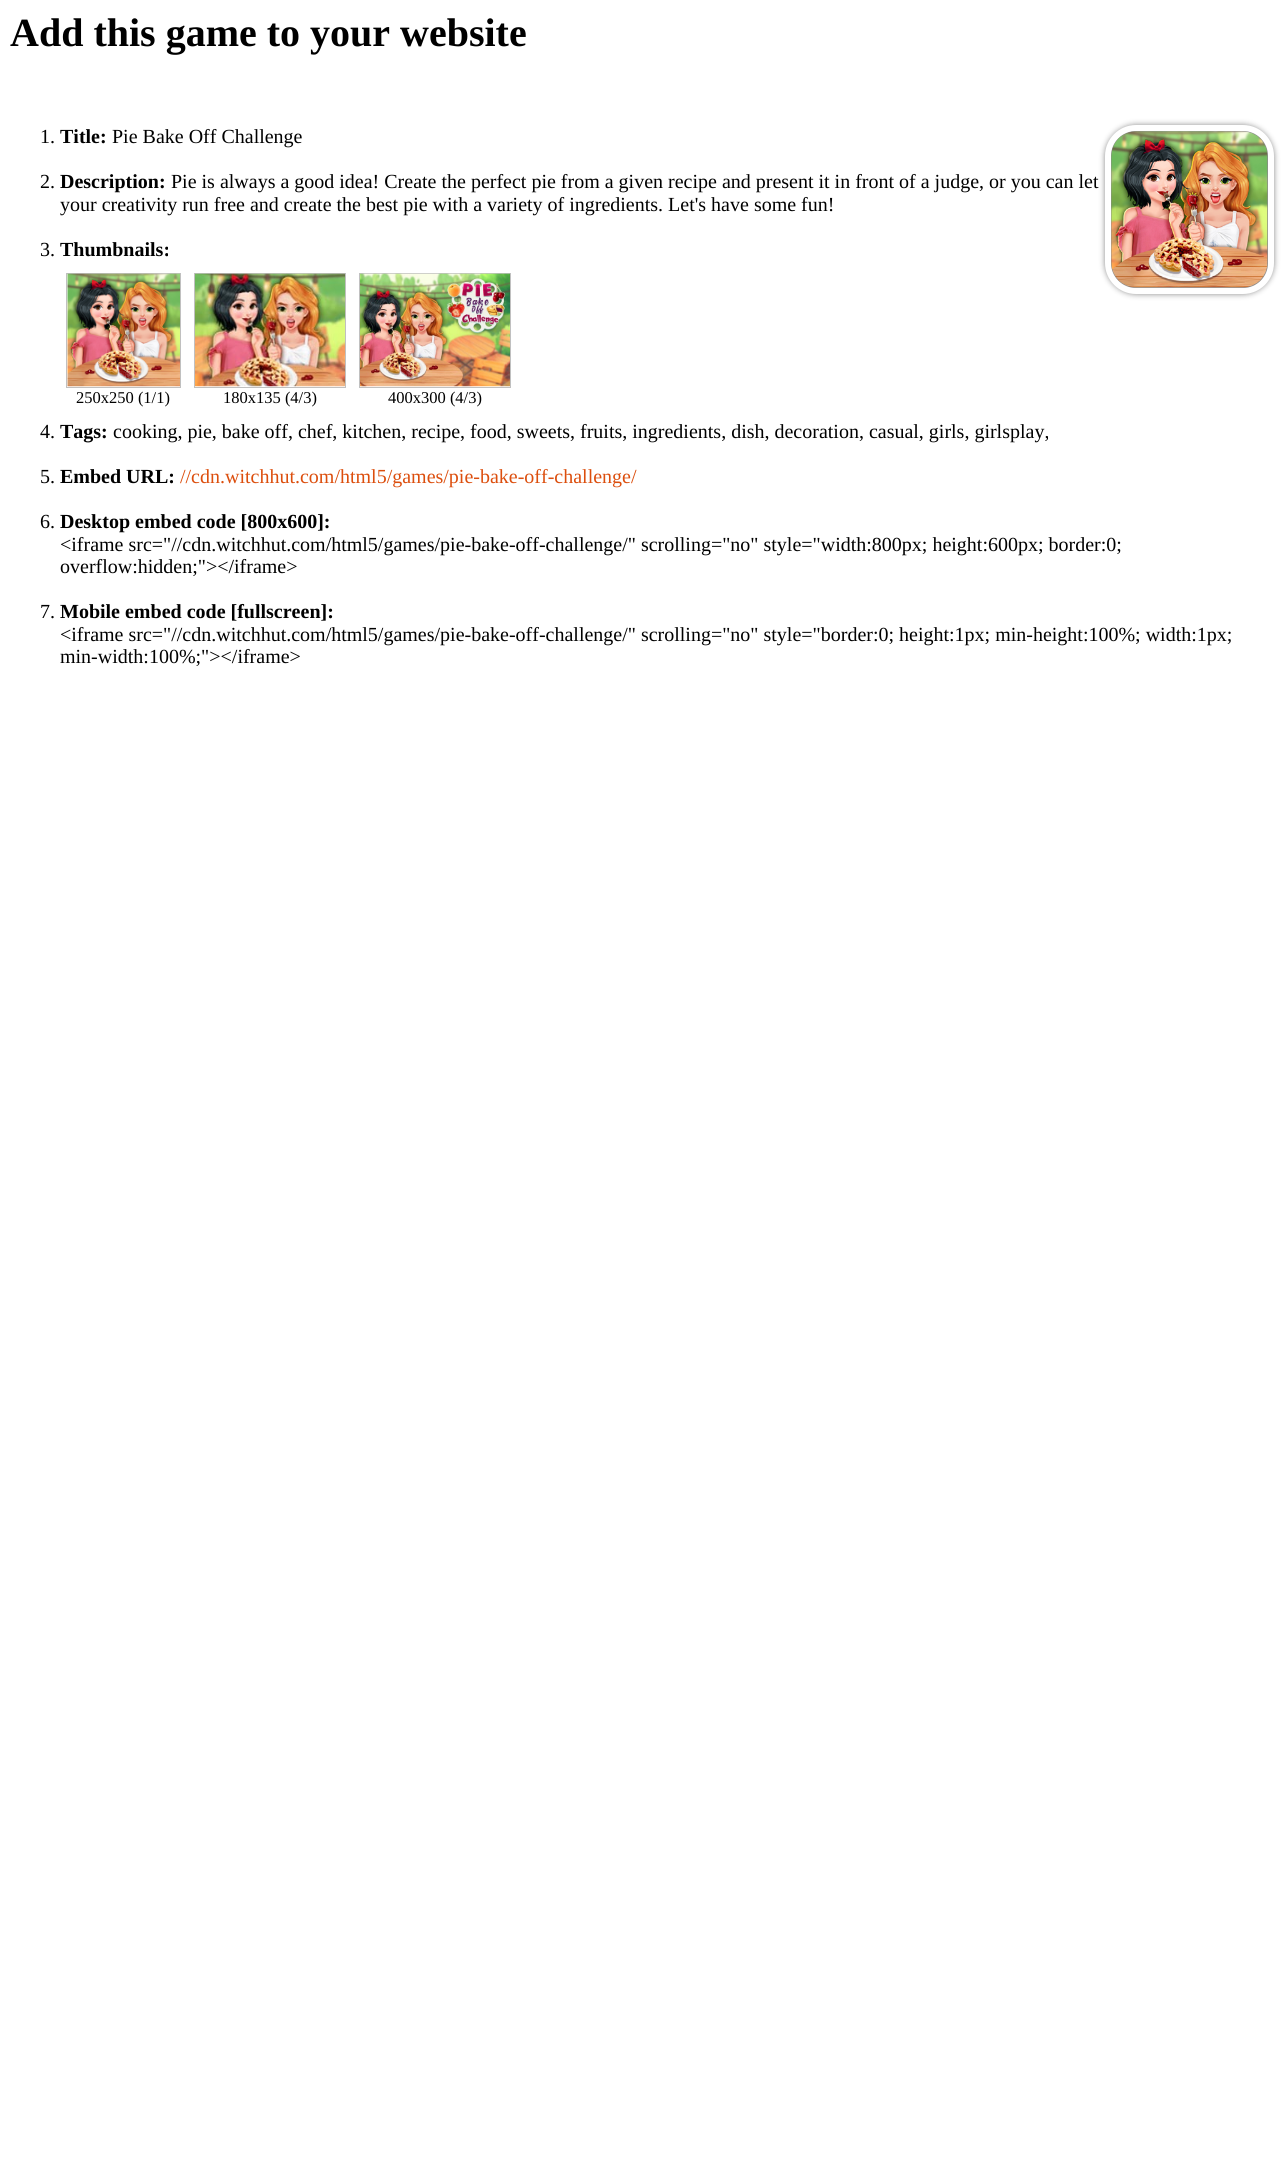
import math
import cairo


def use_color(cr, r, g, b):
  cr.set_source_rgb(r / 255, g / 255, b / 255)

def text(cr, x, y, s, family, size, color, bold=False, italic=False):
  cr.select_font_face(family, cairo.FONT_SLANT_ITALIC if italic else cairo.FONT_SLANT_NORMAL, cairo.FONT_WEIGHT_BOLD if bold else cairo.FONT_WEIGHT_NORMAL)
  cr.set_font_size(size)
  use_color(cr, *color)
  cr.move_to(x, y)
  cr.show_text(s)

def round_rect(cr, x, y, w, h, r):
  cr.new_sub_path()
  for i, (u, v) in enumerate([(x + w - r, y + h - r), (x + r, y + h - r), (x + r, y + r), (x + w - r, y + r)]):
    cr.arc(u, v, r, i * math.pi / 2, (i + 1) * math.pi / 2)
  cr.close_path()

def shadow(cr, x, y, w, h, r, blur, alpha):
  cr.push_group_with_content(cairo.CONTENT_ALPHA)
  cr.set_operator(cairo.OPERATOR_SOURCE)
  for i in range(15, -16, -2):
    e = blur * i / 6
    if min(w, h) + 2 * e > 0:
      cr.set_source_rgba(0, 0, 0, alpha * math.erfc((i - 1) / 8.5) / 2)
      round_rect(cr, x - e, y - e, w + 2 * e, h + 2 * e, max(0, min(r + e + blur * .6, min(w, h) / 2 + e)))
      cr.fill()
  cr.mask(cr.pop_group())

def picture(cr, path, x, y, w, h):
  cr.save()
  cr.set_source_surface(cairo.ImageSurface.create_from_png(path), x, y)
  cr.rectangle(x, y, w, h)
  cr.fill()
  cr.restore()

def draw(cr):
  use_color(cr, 255, 255, 255)
  cr.paint()
  use_color(cr, 136, 136, 136)
  shadow(cr, 1105, 125, 169, 169, 31, 3, 1)
  round_rect(cr, 1108, 128, 163, 163, 28)
  use_color(cr, 255, 255, 255)
  cr.set_line_width(6)
  cr.stroke()
  picture(cr, "img_01.png", 1111, 131, 157, 157)
  cr.rectangle(66.5, 273.5, 114, 114)
  use_color(cr, 192, 192, 192)
  cr.set_line_width(1)
  cr.stroke()
  picture(cr, "img_02.png", 67, 273, 113, 114)
  cr.rectangle(194.5, 273.5, 151, 114)
  cr.stroke()
  picture(cr, "img_03.png", 195, 273, 150, 114)
  cr.rectangle(359.5, 273.5, 151, 114)
  cr.stroke()
  picture(cr, "img_04.png", 360, 273, 150, 114)
  text(cr, 10, 46, "Add this game to your website", "Liberation Serif", 40, (0, 0, 0), bold=True)
  text(cr, 40, 143, "1.", "Liberation Serif", 20, (0, 0, 0))
  text(cr, 60, 143, "Title:", "Liberation Serif", 20, (0, 0, 0), bold=True)
  text(cr, 112, 143, "Pie Bake Off Challenge", "Liberation Serif", 20, (0, 0, 0))
  text(cr, 40, 188, "2.", "Liberation Serif", 20, (0, 0, 0))
  text(cr, 60, 188, "Description:", "Liberation Serif", 20, (0, 0, 0), bold=True)
  text(cr, 171, 188, "Pie is always a good idea! Create the perfect pie from a given recipe and present it in front of a judge, or you can let", "Liberation Serif", 20, (0, 0, 0))
  text(cr, 60, 211, "your creativity run free and create the best pie with a variety of ingredients. Let's have some fun!", "Liberation Serif", 20, (0, 0, 0))
  text(cr, 40, 256, "3.", "Liberation Serif", 20, (0, 0, 0))
  text(cr, 60, 256, "Thumbnails:", "Liberation Serif", 20, (0, 0, 0), bold=True)
  text(cr, 76, 403, "250x250 (1/1)", "Liberation Serif", 16.5, (0, 0, 0))
  text(cr, 223, 403, "180x135 (4/3)", "Liberation Serif", 16.5, (0, 0, 0))
  text(cr, 388, 403, "400x300 (4/3)", "Liberation Serif", 16.5, (0, 0, 0))
  text(cr, 40, 438, "4.", "Liberation Serif", 20, (0, 0, 0))
  text(cr, 60, 438, "Tags:", "Liberation Serif", 20, (0, 0, 0), bold=True)
  text(cr, 113, 438, "cooking, pie, bake off, chef, kitchen, recipe, food, sweets, fruits, ingredients, dish, decoration, casual, girls, girlsplay,", "Liberation Serif", 20, (0, 0, 0))
  text(cr, 40, 483, "5.", "Liberation Serif", 20, (0, 0, 0))
  text(cr, 60, 483, "Embed URL:", "Liberation Serif", 20, (0, 0, 0), bold=True)
  text(cr, 180, 483, "//cdn.witchhut.com/html5/games/pie-bake-off-challenge/", "Liberation Serif", 20, (220, 78, 13))
  text(cr, 40, 528, "6.", "Liberation Serif", 20, (0, 0, 0))
  text(cr, 60, 528, "Desktop embed code [800x600]:", "Liberation Serif", 20, (0, 0, 0), bold=True)
  text(cr, 60, 551, "<iframe src=\"//cdn.witchhut.com/html5/games/pie-bake-off-challenge/\" scrolling=\"no\" style=\"width:800px; height:600px; border:0;", "Liberation Serif", 20, (0, 0, 0))
  text(cr, 60, 573, "overflow:hidden;\"></iframe>", "Liberation Serif", 20, (0, 0, 0))
  text(cr, 40, 618, "7.", "Liberation Serif", 20, (0, 0, 0))
  text(cr, 60, 618, "Mobile embed code [fullscreen]:", "Liberation Serif", 20, (0, 0, 0), bold=True)
  text(cr, 60, 641, "<iframe src=\"//cdn.witchhut.com/html5/games/pie-bake-off-challenge/\" scrolling=\"no\" style=\"border:0; height:1px; min-height:100%; width:1px;", "Liberation Serif", 20, (0, 0, 0))
  text(cr, 60, 663, "min-width:100%;\"></iframe>", "Liberation Serif", 20, (0, 0, 0))


surface = cairo.ImageSurface(cairo.FORMAT_RGB24, 1283, 2171)
cr = cairo.Context(surface)
options = cairo.FontOptions()
options.set_hint_metrics(cairo.HINT_METRICS_OFF)
options.set_hint_style(cairo.HINT_STYLE_NONE)
cr.set_font_options(options)
cr.set_miter_limit(4)
draw(cr)
surface.write_to_png("out.png")
